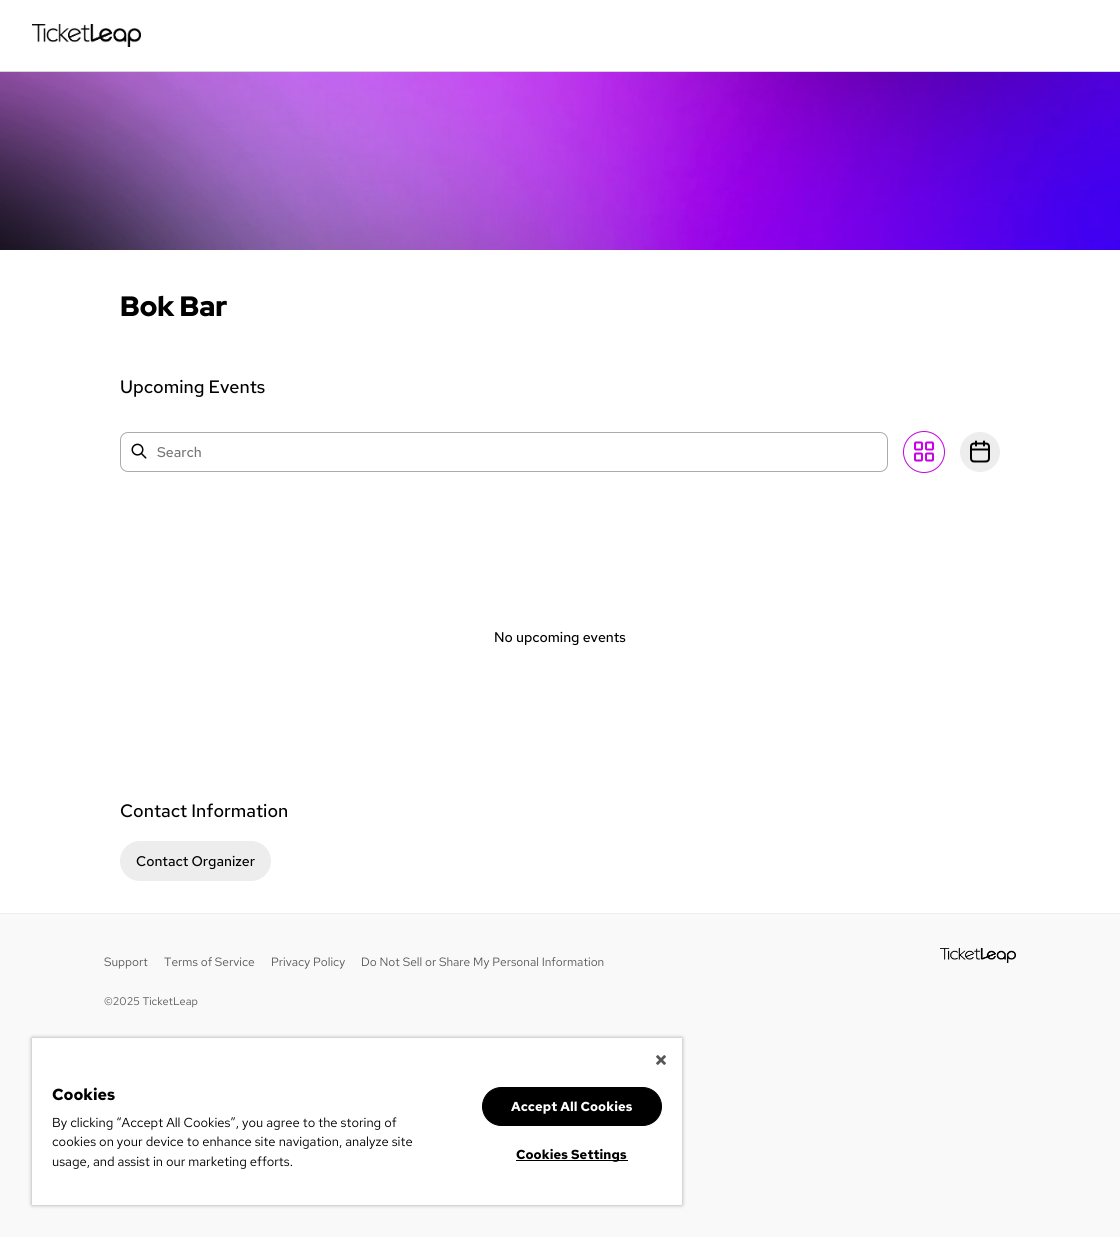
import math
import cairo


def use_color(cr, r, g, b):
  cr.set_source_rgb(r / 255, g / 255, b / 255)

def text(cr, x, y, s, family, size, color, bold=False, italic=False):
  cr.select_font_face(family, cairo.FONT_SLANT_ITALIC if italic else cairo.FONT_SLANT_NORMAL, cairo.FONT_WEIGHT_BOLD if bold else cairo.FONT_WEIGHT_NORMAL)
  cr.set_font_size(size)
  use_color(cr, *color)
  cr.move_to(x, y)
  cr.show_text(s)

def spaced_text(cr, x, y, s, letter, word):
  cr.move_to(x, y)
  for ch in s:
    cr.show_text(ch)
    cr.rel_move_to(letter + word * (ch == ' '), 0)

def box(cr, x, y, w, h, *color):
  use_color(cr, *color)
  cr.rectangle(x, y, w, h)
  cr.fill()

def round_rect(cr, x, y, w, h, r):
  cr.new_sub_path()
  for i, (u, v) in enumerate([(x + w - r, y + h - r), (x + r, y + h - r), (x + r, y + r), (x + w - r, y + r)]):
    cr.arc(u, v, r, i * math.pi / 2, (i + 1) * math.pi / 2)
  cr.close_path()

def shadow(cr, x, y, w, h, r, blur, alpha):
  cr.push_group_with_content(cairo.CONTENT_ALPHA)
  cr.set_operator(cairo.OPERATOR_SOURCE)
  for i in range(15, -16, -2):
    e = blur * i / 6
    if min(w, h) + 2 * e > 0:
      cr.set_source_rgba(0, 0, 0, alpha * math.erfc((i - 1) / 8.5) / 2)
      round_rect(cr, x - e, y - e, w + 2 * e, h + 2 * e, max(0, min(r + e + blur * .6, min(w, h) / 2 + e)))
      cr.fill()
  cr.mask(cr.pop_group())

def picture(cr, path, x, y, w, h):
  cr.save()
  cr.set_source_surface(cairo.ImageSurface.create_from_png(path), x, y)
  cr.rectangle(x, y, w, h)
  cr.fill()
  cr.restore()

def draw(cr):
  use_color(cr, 255, 255, 255)
  cr.paint()
  box(cr, 0, 71, 1120, 1, 213, 213, 213)
  picture(cr, "img_01.png", 32, 24, 109, 23)
  picture(cr, "img_02.png", 0, 72, 1120, 178)
  round_rect(cr, 120.5, 432.5, 767, 39, 7.5)
  use_color(cr, 171, 171, 171)
  cr.set_line_width(1)
  cr.stroke()
  picture(cr, "img_03.png", 131, 443, 16, 16)
  picture(cr, "img_04.png", 914, 441, 20, 21)
  cr.arc(924, 452, 20.5, 0, 2 * math.pi)
  use_color(cr, 199, 0, 230)
  cr.stroke()
  use_color(cr, 237, 237, 237)
  cr.arc(980, 452, 20, 0, 2 * math.pi)
  cr.fill()
  picture(cr, "img_05.png", 970, 440, 20, 23)
  round_rect(cr, 120, 841, 151, 40, 20)
  cr.fill()
  box(cr, 0, 914, 1120, 323, 249, 249, 249)
  box(cr, 0, 913, 1120, 1, 238, 238, 238)
  picture(cr, "img_06.png", 940, 948, 76, 15)
  use_color(cr, 0, 0, 0)
  shadow(cr, 32, 1038, 650, 167, 0, 2, 0.35)
  box(cr, 32, 1038, 650, 167, 255, 255, 255)
  picture(cr, "img_07.png", 656, 1055, 10, 10)
  use_color(cr, 0, 0, 0)
  round_rect(cr, 482.5, 1087.5, 179, 38, 19)
  cr.fill_preserve()
  cr.stroke()
  box(cr, 516, 1160, 112, 1, 0, 0, 0)
  text(cr, 120, 316, "Bok Bar", "Red Hat Display Black", 28, (0, 0, 0))
  text(cr, 120, 393, "Upcoming Events", "Red Hat Text Medium", 18, (0, 0, 0))
  text(cr, 157, 457, "Search", "Red Hat Text Medium", 14, (117, 117, 117))
  text(cr, 494, 642, "No upcoming events", "Red Hat Text Medium", 14, (0, 0, 0))
  text(cr, 120, 817, "Contact Information", "Red Hat Text Medium", 18, (0, 0, 0))
  text(cr, 136, 866, "Contact Organizer", "Red Hat Text Medium", 14, (0, 0, 0))
  text(cr, 104, 966, "Support", "Red Hat Text", 12, (88, 88, 88))
  text(cr, 164, 966, "Terms of Service", "Red Hat Text", 12, (88, 88, 88))
  text(cr, 271, 966, "Privacy Policy", "Red Hat Text", 12, (88, 88, 88))
  text(cr, 361, 966, "Do Not Sell or Share My Personal Information", "Red Hat Text", 12, (88, 88, 88))
  text(cr, 104, 1005, "©2025 TicketLeap", "Red Hat Text", 11, (88, 88, 88))
  text(cr, 52, 1100, "Cookies", "Red Hat Text", 16, (0, 0, 0), bold=True)
  text(cr, 52, 1127, "By clicking “Accept All Cookies”, you agree to the storing of", "Red Hat Text", 13, (0, 0, 0))
  text(cr, 52, 1146, "cookies on your device to enhance site navigation, analyze site", "Red Hat Text", 13, (0, 0, 0))
  text(cr, 52, 1166, "usage, and assist in our marketing efforts.", "Red Hat Text", 13, (0, 0, 0))
  cr.select_font_face("Red Hat Text", cairo.FONT_SLANT_NORMAL, cairo.FONT_WEIGHT_BOLD)
  use_color(cr, 255, 255, 255)
  spaced_text(cr, 511, 1111, "Accept All Cookies", 0.1, 0)
  use_color(cr, 0, 0, 0)
  spaced_text(cr, 516, 1159, "Cookies Settings", 0.1, 0)


surface = cairo.ImageSurface(cairo.FORMAT_RGB24, 1120, 1237)
cr = cairo.Context(surface)
options = cairo.FontOptions()
options.set_hint_metrics(cairo.HINT_METRICS_OFF)
options.set_hint_style(cairo.HINT_STYLE_NONE)
cr.set_font_options(options)
cr.set_miter_limit(4)
draw(cr)
surface.write_to_png("out.png")
